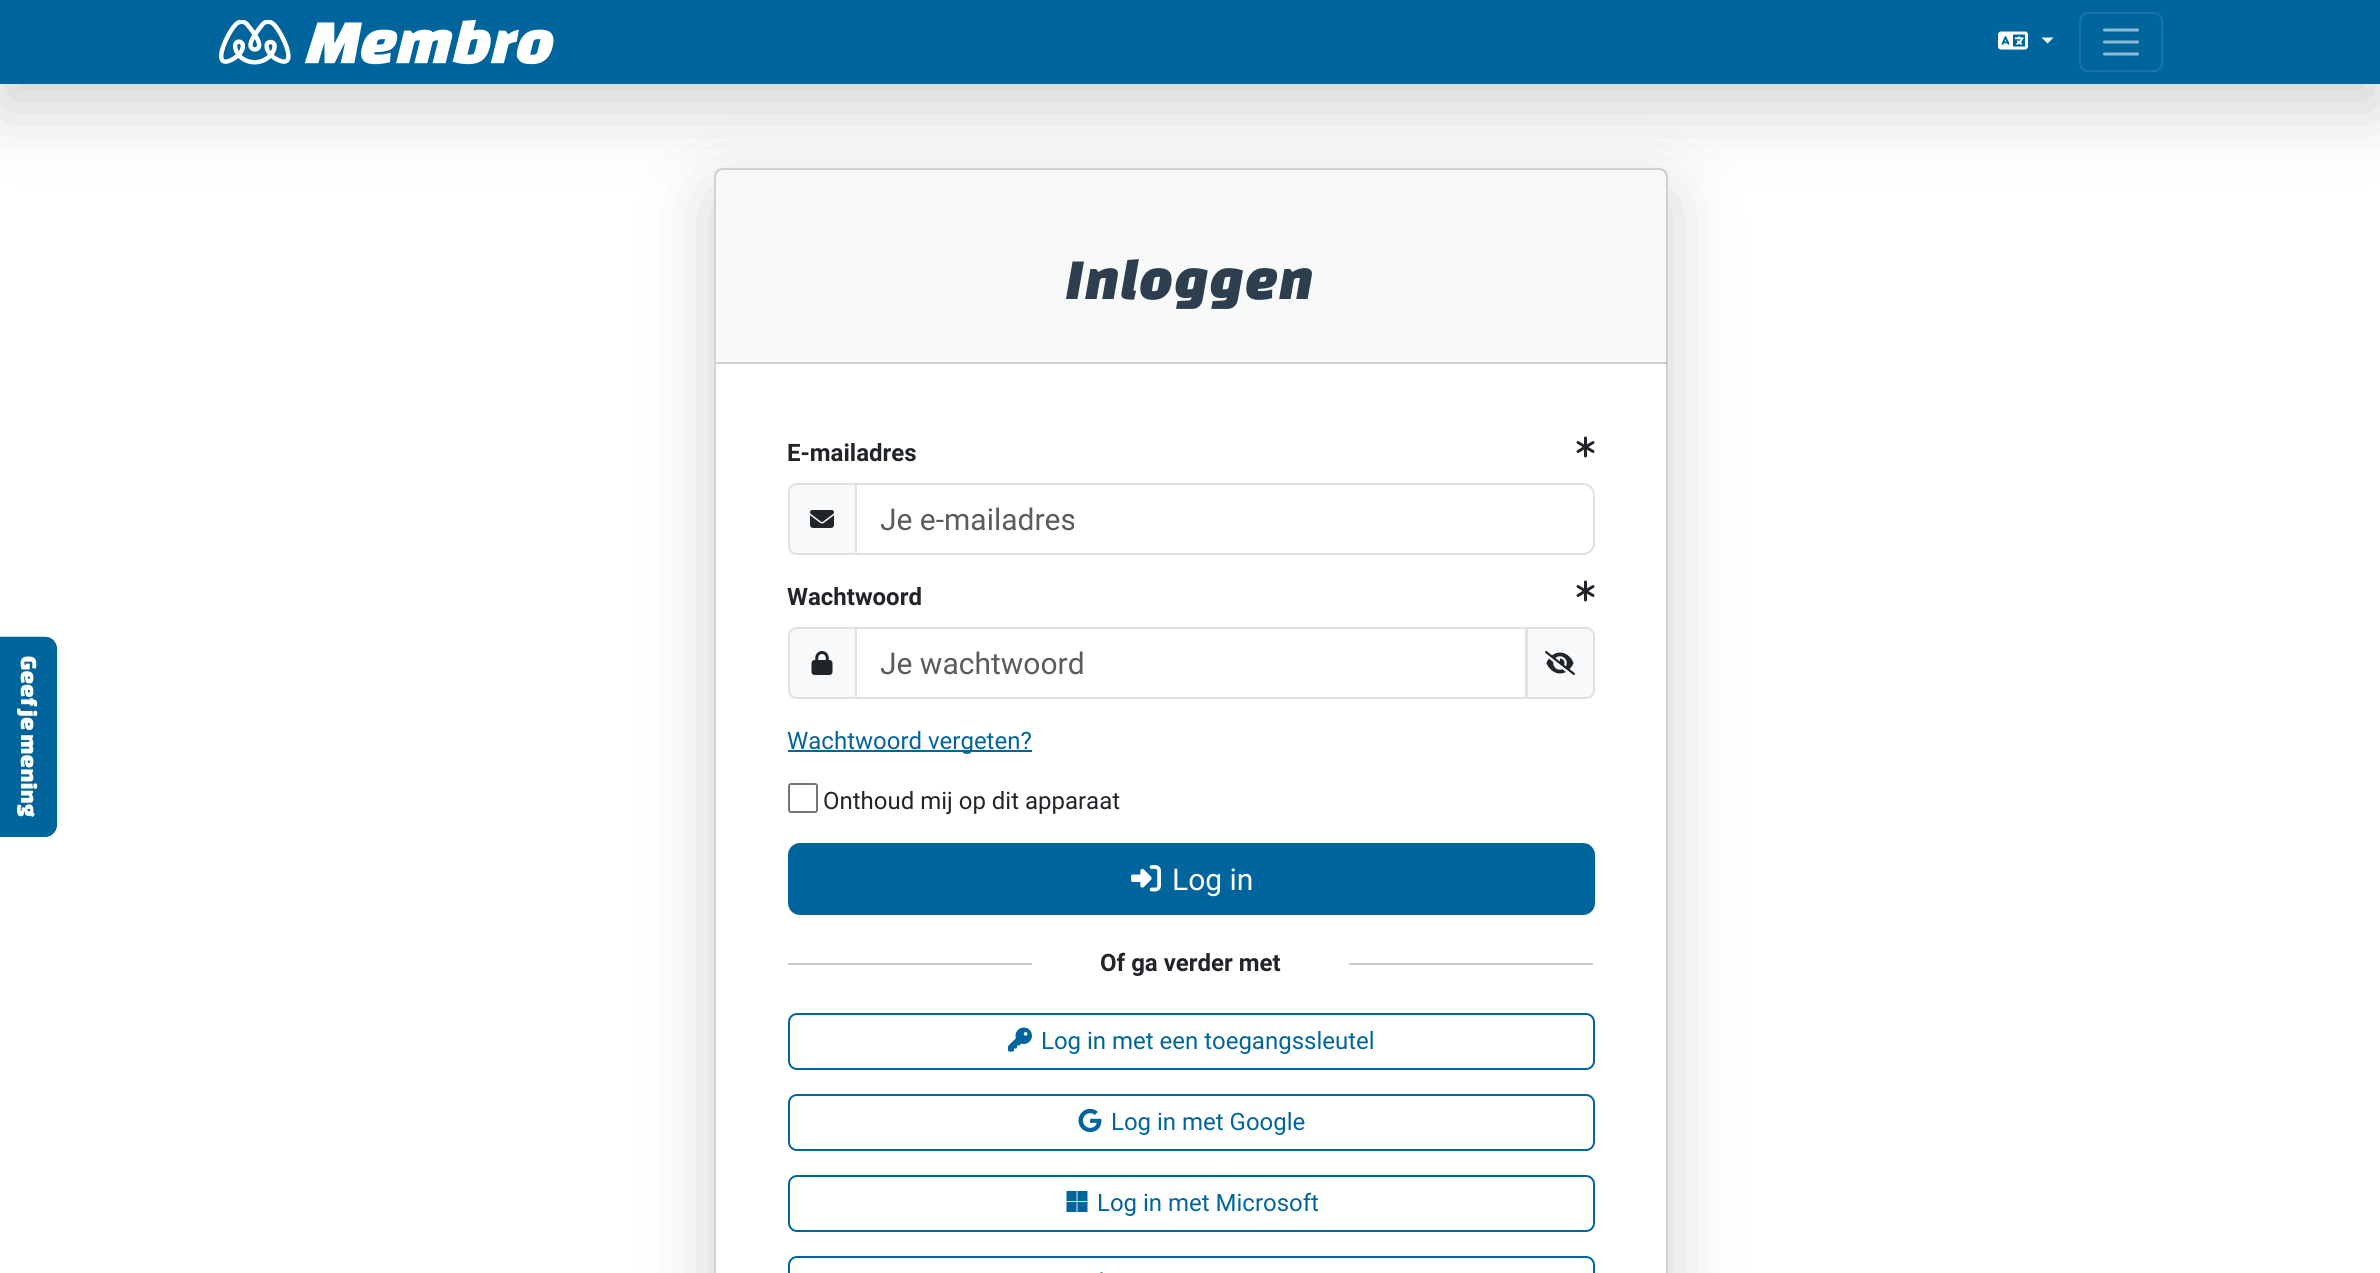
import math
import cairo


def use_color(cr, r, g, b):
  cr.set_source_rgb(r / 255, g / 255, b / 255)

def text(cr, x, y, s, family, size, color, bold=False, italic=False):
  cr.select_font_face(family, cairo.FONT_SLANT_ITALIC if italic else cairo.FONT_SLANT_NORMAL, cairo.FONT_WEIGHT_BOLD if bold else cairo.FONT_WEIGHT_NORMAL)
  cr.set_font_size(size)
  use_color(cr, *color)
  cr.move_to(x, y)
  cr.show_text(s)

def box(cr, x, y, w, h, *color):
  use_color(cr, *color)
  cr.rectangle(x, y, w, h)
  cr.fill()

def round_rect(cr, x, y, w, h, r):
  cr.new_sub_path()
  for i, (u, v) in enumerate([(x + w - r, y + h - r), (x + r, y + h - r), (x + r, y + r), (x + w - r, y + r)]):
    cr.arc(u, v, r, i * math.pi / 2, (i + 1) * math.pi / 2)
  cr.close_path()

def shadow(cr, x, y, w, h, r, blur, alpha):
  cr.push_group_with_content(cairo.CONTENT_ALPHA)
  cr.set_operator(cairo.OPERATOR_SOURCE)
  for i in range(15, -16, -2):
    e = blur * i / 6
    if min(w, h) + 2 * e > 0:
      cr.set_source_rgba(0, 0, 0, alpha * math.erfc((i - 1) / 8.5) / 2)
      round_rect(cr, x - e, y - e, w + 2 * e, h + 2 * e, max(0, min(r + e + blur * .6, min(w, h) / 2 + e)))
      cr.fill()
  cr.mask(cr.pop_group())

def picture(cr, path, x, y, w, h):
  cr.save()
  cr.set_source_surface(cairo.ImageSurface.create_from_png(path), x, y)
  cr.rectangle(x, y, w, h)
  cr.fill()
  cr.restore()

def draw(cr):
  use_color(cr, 255, 255, 255)
  cr.paint()
  use_color(cr, 0, 0, 0)
  shadow(cr, 714, 192, 954, 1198, 9, 36, 0.18)
  use_color(cr, 255, 255, 255)
  round_rect(cr, 715, 169, 952, 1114, 8)
  cr.fill_preserve()
  use_color(cr, 210, 210, 210)
  cr.stroke()
  cr.set_source_rgba(0.129, 0.145, 0.161, 0.03)
  cr.rectangle(716, 170, 951, 193)
  cr.fill()
  use_color(cr, 0, 0, 0)
  shadow(cr, 0, 24, 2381, 84, 0, 36, 0.18)
  box(cr, 0, 0, 2380, 84, 0, 101, 157)
  picture(cr, "img_01.png", 219, 20, 335, 45)
  picture(cr, "img_02.png", 1998, 31, 30, 19)
  use_color(cr, 255, 255, 255)
  cr.new_path()
  cr.move_to(2041.5, 37.5)
  cr.line_to(2053.5, 37.5)
  cr.line_to(2047.5, 43.5)
  cr.close_path()
  cr.fill()
  round_rect(cr, 2080, 13, 82, 58, 8)
  use_color(cr, 26, 116, 167)
  cr.stroke()
  cr.new_path()
  cr.move_to(2104.5, 30)
  cr.line_to(2137.5, 30)
  cr.move_to(2104.5, 42)
  cr.line_to(2137.5, 42)
  cr.move_to(2104.5, 54)
  cr.line_to(2137.5, 54)
  use_color(cr, 140, 186, 211)
  cr.set_line_width(3)
  cr.set_line_cap(cairo.LINE_CAP_ROUND)
  cr.stroke()
  use_color(cr, 0, 101, 157)
  cr.new_path()
  cr.move_to(57, 649)
  cr.line_to(57, 825)
  cr.curve_to(57, 831, 52, 837, 45, 837)
  cr.line_to(0, 837)
  cr.line_to(0, 637)
  cr.line_to(45, 637)
  cr.curve_to(52, 637, 57, 642, 57, 649)
  cr.close_path()
  cr.fill()
  cr.new_path()
  cr.move_to(56, 649)
  cr.line_to(56, 824.5)
  cr.curve_to(56, 830.5, 51, 836, 45, 836)
  cr.line_to(1, 836)
  cr.line_to(1, 637.5)
  cr.line_to(45, 637.5)
  cr.curve_to(51, 637.5, 56, 642.5, 56, 649)
  cr.close_path()
  cr.set_line_width(1.5)
  cr.set_line_cap(cairo.LINE_CAP_BUTT)
  cr.stroke()
  cr.set_source_rgba(0, 0, 0, 0.18)
  cr.rectangle(716, 362, 951, 2)
  cr.fill()
  picture(cr, "img_03.png", 1576, 436, 19, 22)
  use_color(cr, 248, 249, 250)
  cr.new_path()
  cr.move_to(797, 484)
  cr.line_to(856, 484)
  cr.line_to(856, 554)
  cr.line_to(797, 554)
  cr.curve_to(792.5, 554, 789, 550.5, 789, 546)
  cr.line_to(789, 492)
  cr.curve_to(789, 487.5, 792.5, 484, 797, 484)
  cr.close_path()
  cr.fill_preserve()
  use_color(cr, 222, 226, 230)
  cr.set_line_width(2)
  cr.stroke()
  picture(cr, "img_04.png", 810, 510, 24, 18)
  cr.new_path()
  cr.move_to(856, 484)
  cr.line_to(1583, 484)
  cr.curve_to(1589, 484, 1594, 489, 1594, 495)
  cr.line_to(1594, 543)
  cr.curve_to(1594, 549, 1589, 554, 1583, 554)
  cr.line_to(856, 554)
  cr.close_path()
  cr.stroke()
  picture(cr, "img_03.png", 1576, 580, 19, 22)
  use_color(cr, 248, 249, 250)
  cr.new_path()
  cr.move_to(797, 628)
  cr.line_to(856, 628)
  cr.line_to(856, 698)
  cr.line_to(797, 698)
  cr.curve_to(792.5, 698, 789, 694.5, 789, 690)
  cr.line_to(789, 636)
  cr.curve_to(789, 631.5, 792.5, 628, 797, 628)
  cr.close_path()
  cr.fill_preserve()
  use_color(cr, 222, 226, 230)
  cr.stroke()
  picture(cr, "img_05.png", 811, 651, 22, 24)
  use_color(cr, 248, 249, 250)
  cr.new_path()
  cr.move_to(1527, 628)
  cr.line_to(1586, 628)
  cr.curve_to(1590.5, 628, 1594, 631.5, 1594, 636)
  cr.line_to(1594, 690)
  cr.curve_to(1594, 694.5, 1590.5, 698, 1586, 698)
  cr.line_to(1527, 698)
  cr.close_path()
  cr.fill_preserve()
  use_color(cr, 222, 226, 230)
  cr.stroke()
  cr.rectangle(856, 628, 670, 70)
  cr.stroke()
  picture(cr, "img_06.png", 1545, 651, 30, 24)
  box(cr, 788, 750, 244, 2, 0, 101, 157)
  round_rect(cr, 789, 784, 28, 28, 2)
  use_color(cr, 118, 118, 118)
  cr.stroke()
  use_color(cr, 0, 101, 157)
  round_rect(cr, 789, 844, 805, 70, 11)
  cr.fill_preserve()
  cr.stroke()
  picture(cr, "img_07.png", 1131, 865, 30, 27)
  box(cr, 788, 963, 244, 2, 200, 201, 202)
  box(cr, 1349, 963, 244, 2, 200, 201, 202)
  round_rect(cr, 789, 1014, 805, 55, 8)
  use_color(cr, 0, 101, 157)
  cr.stroke()
  picture(cr, "img_08.png", 1008, 1027, 24, 25)
  round_rect(cr, 789, 1095, 805, 55, 8)
  cr.stroke()
  picture(cr, "img_09.png", 1078, 1108, 24, 25)
  round_rect(cr, 789, 1176, 805, 55, 8)
  cr.stroke()
  picture(cr, "img_10.png", 1066, 1191, 22, 21)
  round_rect(cr, 789, 1257, 805, 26, 8)
  cr.stroke()
  picture(cr, "img_11.png", 1100, 1272, 3, 1)
  cr.save()
  cr.translate(21, 656)
  cr.rotate(90 * math.pi / 180)
  text(cr, 0, 0, "Geef je mening", "Changa One", 24, (255, 255, 255))
  cr.restore()
  text(cr, 1066, 299, "Inloggen", "Changa One", 60, (45, 62, 79), italic=True)
  text(cr, 787, 461, "E-mailadres", "Roboto", 24, (33, 37, 41), bold=True)
  cr.save()
  cr.rectangle(881, 501, 688, 36)
  cr.clip()
  text(cr, 880, 530, "Je e-mailadres", "Roboto", 30, (89, 92, 95))
  cr.restore()
  text(cr, 787, 605, "Wachtwoord", "Roboto", 24, (33, 37, 41), bold=True)
  cr.save()
  cr.rectangle(881, 645, 621, 36)
  cr.clip()
  text(cr, 880, 674, "Je wachtwoord", "Roboto", 30, (89, 92, 95))
  cr.restore()
  text(cr, 787, 749, "Wachtwoord vergeten?", "Roboto", 24, (0, 101, 157))
  text(cr, 823, 809, "Onthoud mij op dit apparaat", "Roboto", 24, (33, 37, 41))
  text(cr, 1172, 890, "Log in", "Roboto", 30, (255, 255, 255))
  text(cr, 1100, 971, "Of ga verder met", "Roboto", 24, (33, 37, 41), bold=True)
  text(cr, 1041, 1049, "Log in met een toegangssleutel", "Roboto", 24, (0, 101, 157))
  text(cr, 1111, 1130, "Log in met Google", "Roboto", 24, (0, 101, 157))
  text(cr, 1097, 1211, "Log in met Microsoft", "Roboto", 24, (0, 101, 157))


surface = cairo.ImageSurface(cairo.FORMAT_RGB24, 2380, 1273)
cr = cairo.Context(surface)
options = cairo.FontOptions()
options.set_hint_metrics(cairo.HINT_METRICS_OFF)
options.set_hint_style(cairo.HINT_STYLE_NONE)
cr.set_font_options(options)
cr.set_miter_limit(4)
draw(cr)
surface.write_to_png("out.png")
